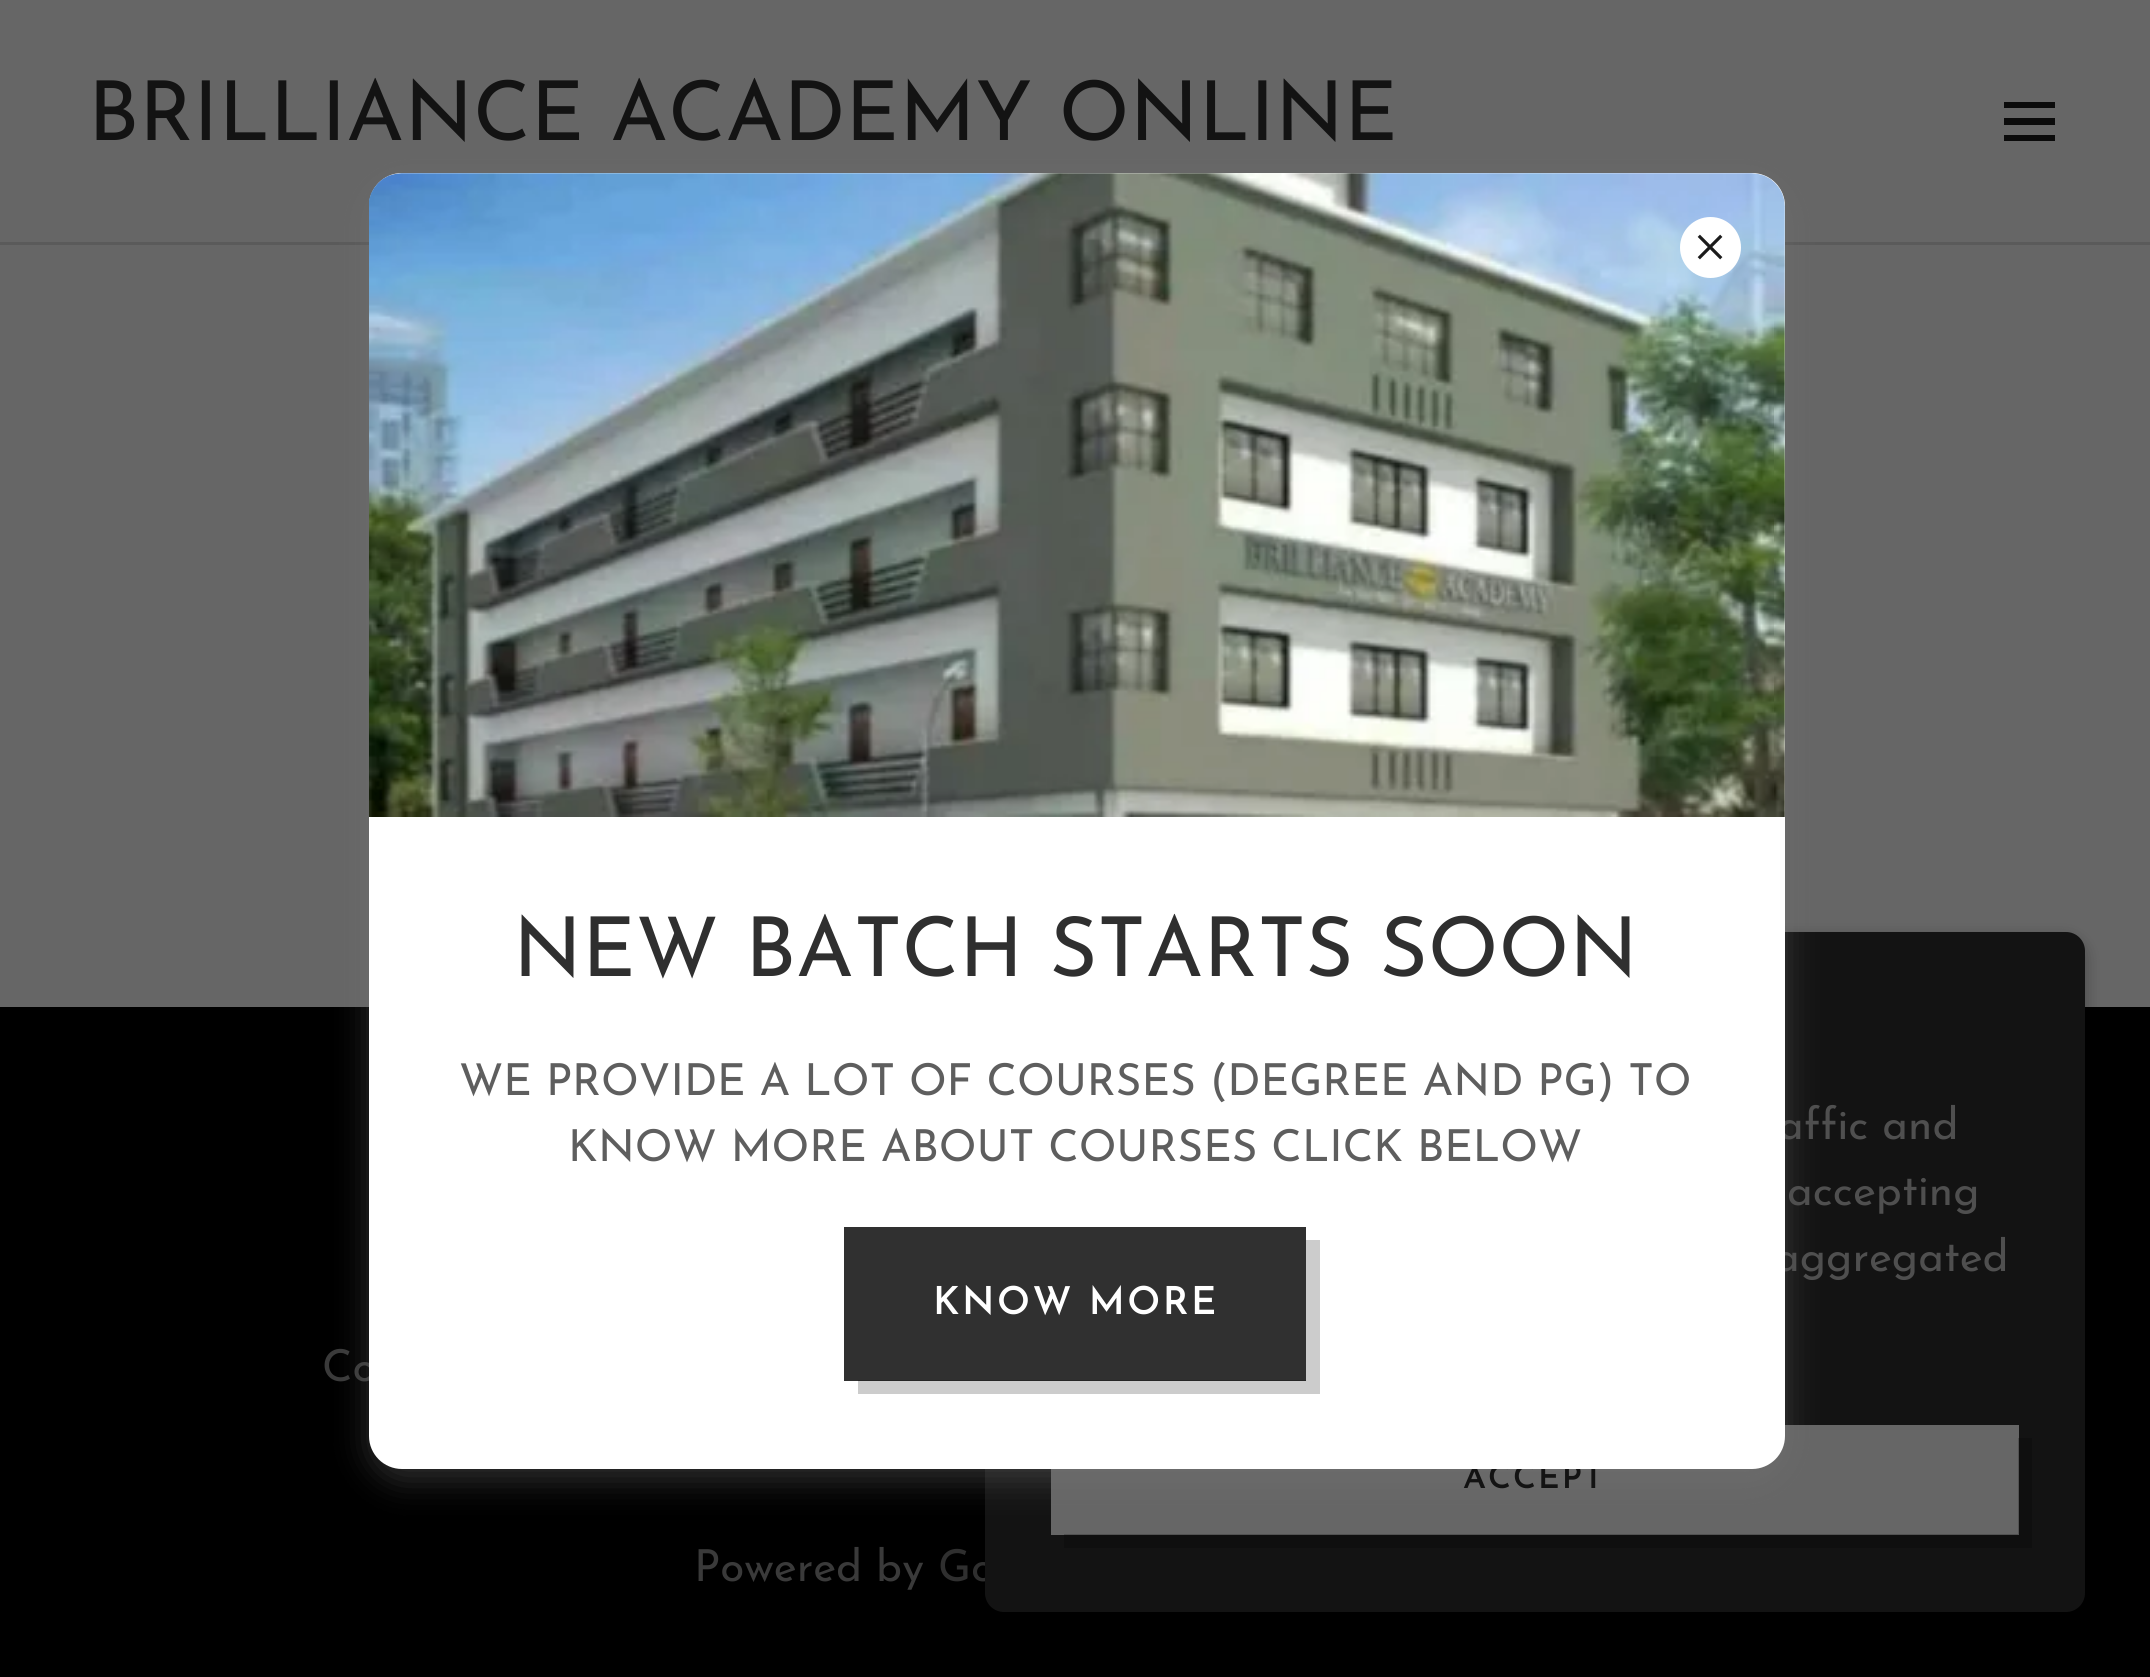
import math
import cairo


def use_color(cr, r, g, b):
  cr.set_source_rgb(r / 255, g / 255, b / 255)

def text(cr, x, y, s, family, size, color, bold=False, italic=False):
  cr.select_font_face(family, cairo.FONT_SLANT_ITALIC if italic else cairo.FONT_SLANT_NORMAL, cairo.FONT_WEIGHT_BOLD if bold else cairo.FONT_WEIGHT_NORMAL)
  cr.set_font_size(size)
  use_color(cr, *color)
  cr.move_to(x, y)
  cr.show_text(s)

def spaced_text(cr, x, y, s, letter, word):
  cr.move_to(x, y)
  for ch in s:
    cr.show_text(ch)
    cr.rel_move_to(letter + word * (ch == ' '), 0)

def box(cr, x, y, w, h, *color):
  use_color(cr, *color)
  cr.rectangle(x, y, w, h)
  cr.fill()

def round_rect(cr, x, y, w, h, r):
  cr.new_sub_path()
  for i, (u, v) in enumerate([(x + w - r, y + h - r), (x + r, y + h - r), (x + r, y + r), (x + w - r, y + r)]):
    cr.arc(u, v, r, i * math.pi / 2, (i + 1) * math.pi / 2)
  cr.close_path()

def shadow(cr, x, y, w, h, r, blur, alpha):
  cr.push_group_with_content(cairo.CONTENT_ALPHA)
  cr.set_operator(cairo.OPERATOR_SOURCE)
  for i in range(15, -16, -2):
    e = blur * i / 6
    if min(w, h) + 2 * e > 0:
      cr.set_source_rgba(0, 0, 0, alpha * math.erfc((i - 1) / 8.5) / 2)
      round_rect(cr, x - e, y - e, w + 2 * e, h + 2 * e, max(0, min(r + e + blur * .6, min(w, h) / 2 + e)))
      cr.fill()
  cr.mask(cr.pop_group())

def picture(cr, path, x, y, w, h):
  cr.save()
  cr.set_source_surface(cairo.ImageSurface.create_from_png(path), x, y)
  cr.rectangle(x, y, w, h)
  cr.fill()
  cr.restore()

def draw(cr):
  use_color(cr, 0, 0, 0)
  cr.paint()
  box(cr, 0, 0, 2150, 242, 102, 102, 102)
  box(cr, 2004, 102, 51, 6, 11, 11, 11)
  box(cr, 2004, 118, 51, 7, 11, 11, 11)
  box(cr, 2004, 135, 51, 6, 11, 11, 11)
  box(cr, 0, 242, 2150, 3, 90, 90, 90)
  box(cr, 0, 245, 2150, 762, 102, 102, 102)
  use_color(cr, 0, 0, 0)
  shadow(cr, 985, 938, 1100, 679, 19, 8, 0.3)
  text(cr, 88, 140, "BRILLIANCE ACADEMY ONLINE", "Josefin Sans", 82.5, (19, 19, 19))
  text(cr, 322, 1381, "Co", "Josefin Sans", 44, (58, 58, 58))
  text(cr, 694, 1581, "Powered by", "Josefin Sans", 44, (58, 58, 58))
  text(cr, 938, 1581, "Go", "Josefin Sans", 44, (47, 47, 47))
  use_color(cr, 19, 19, 19)
  round_rect(cr, 985, 932, 1100, 680, 19)
  cr.fill()
  box(cr, 1051, 1425, 968, 110, 102, 102, 102)
  cr.set_source_rgba(0, 0, 0, 0.2)
  cr.new_path()
  cr.move_to(1064, 1534)
  cr.line_to(1064, 1548)
  cr.line_to(2032, 1548)
  cr.line_to(2032, 1438)
  cr.line_to(2018, 1438)
  cr.line_to(2018, 1534)
  cr.close_path()
  cr.fill()
  use_color(cr, 117, 117, 117)
  shadow(cr, 369, 184, 1416, 1296, 33, 16.5, 0.4)
  cr.select_font_face("Josefin Sans SemiBold")
  cr.set_font_size(33)
  use_color(cr, 19, 19, 19)
  spaced_text(cr, 1463, 1488, "ACCEPT", 2, 0)
  text(cr, 1774, 1271, "aggregated", "Josefin Sans", 44, (79, 79, 79))
  text(cr, 1778, 1139, "affic and", "Josefin Sans", 44, (79, 79, 79))
  use_color(cr, 255, 255, 255)
  round_rect(cr, 369, 173, 1416, 1296, 33)
  cr.fill()
  box(cr, 844, 1227, 462, 154, 48, 48, 48)
  cr.set_source_rgba(0, 0, 0, 0.2)
  cr.new_path()
  cr.move_to(858, 1380)
  cr.line_to(858, 1394)
  cr.line_to(1320, 1394)
  cr.line_to(1320, 1240)
  cr.line_to(1306, 1240)
  cr.line_to(1306, 1380)
  cr.close_path()
  cr.fill()
  cr.select_font_face("Josefin Sans SemiBold")
  cr.set_font_size(38.5)
  use_color(cr, 255, 255, 255)
  spaced_text(cr, 933, 1314, "KNOW MORE", 2.5, 0)
  picture(cr, "img_02.png", 369, 173, 1416, 644)
  cr.arc(1710.5, 247.5, 30.5, 0, 2 * math.pi)
  cr.fill()
  picture(cr, "img_01.png", 1697, 234, 26, 26)
  text(cr, 568, 1161, "KNOW MORE ABOUT COURSES CLICK BELOW", "Josefin Sans", 44, (94, 94, 94))
  text(cr, 459, 1095, "WE PROVIDE A LOT OF COURSES (DEGREE AND PG) TO", "Josefin Sans", 44, (94, 94, 94))
  text(cr, 513, 976, "NEW BATCH STARTS SOON", "Josefin Sans", 82.5, (47, 47, 47))
  text(cr, 1787, 1205, "accepting", "Josefin Sans", 44, (79, 79, 79))


surface = cairo.ImageSurface(cairo.FORMAT_RGB24, 2150, 1677)
cr = cairo.Context(surface)
options = cairo.FontOptions()
options.set_hint_metrics(cairo.HINT_METRICS_OFF)
options.set_hint_style(cairo.HINT_STYLE_NONE)
cr.set_font_options(options)
cr.set_miter_limit(4)
draw(cr)
surface.write_to_png("out.png")
